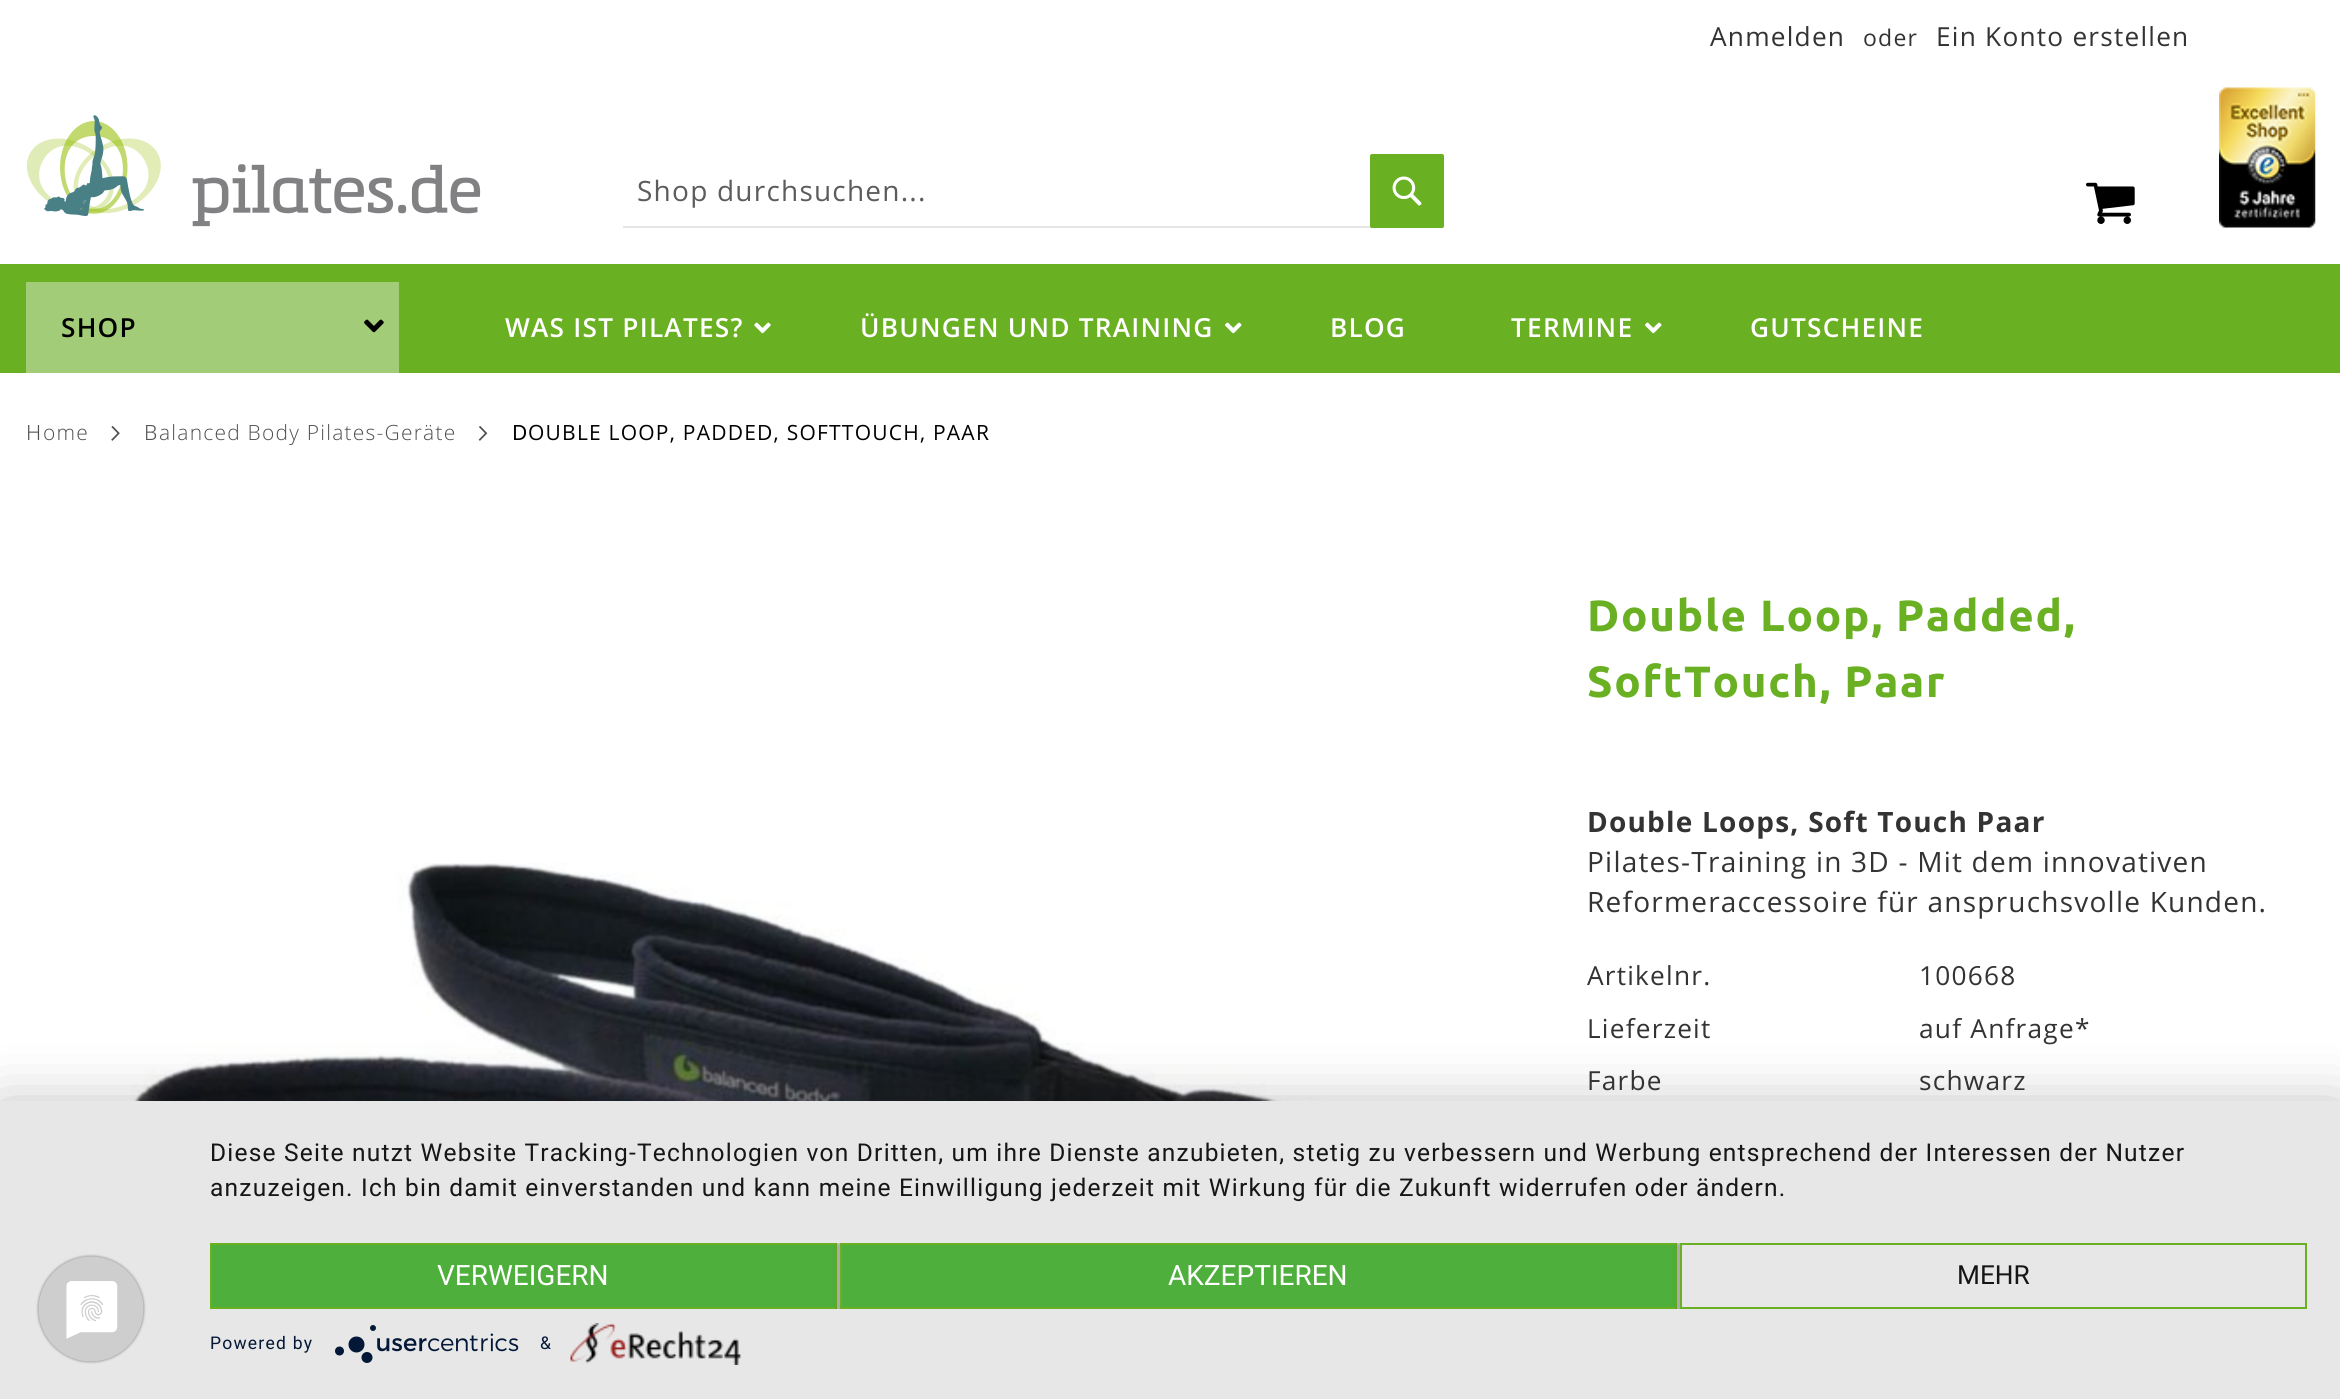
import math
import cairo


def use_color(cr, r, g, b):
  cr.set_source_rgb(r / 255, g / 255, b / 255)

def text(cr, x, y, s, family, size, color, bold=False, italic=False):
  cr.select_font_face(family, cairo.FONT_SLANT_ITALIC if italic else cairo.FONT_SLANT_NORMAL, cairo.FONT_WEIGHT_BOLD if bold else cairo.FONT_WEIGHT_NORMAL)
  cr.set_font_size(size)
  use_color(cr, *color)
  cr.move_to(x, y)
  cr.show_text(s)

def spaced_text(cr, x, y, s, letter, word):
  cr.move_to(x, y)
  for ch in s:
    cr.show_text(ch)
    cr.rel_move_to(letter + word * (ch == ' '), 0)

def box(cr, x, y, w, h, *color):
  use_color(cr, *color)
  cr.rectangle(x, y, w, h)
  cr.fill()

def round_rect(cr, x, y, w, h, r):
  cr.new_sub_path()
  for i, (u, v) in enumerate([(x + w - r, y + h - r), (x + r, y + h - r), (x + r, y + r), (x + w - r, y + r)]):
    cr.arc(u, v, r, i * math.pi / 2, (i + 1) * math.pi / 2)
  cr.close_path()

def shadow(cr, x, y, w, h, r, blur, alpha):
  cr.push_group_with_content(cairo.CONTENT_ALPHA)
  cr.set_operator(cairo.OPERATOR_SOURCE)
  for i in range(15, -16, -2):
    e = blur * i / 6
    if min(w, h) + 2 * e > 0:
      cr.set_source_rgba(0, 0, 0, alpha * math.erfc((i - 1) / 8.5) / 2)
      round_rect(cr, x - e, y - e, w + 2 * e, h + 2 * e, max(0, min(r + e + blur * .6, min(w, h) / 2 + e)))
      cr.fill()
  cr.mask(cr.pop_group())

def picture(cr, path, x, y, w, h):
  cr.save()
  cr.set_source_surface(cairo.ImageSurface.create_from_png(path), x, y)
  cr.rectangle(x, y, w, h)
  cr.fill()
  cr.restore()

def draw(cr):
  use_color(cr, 255, 255, 255)
  cr.paint()
  picture(cr, "img_01.png", 26, 115, 455, 112)
  box(cr, 623, 226, 821, 2, 230, 230, 230)
  use_color(cr, 106, 176, 35)
  round_rect(cr, 1370, 154, 74, 74, 2)
  cr.fill()
  picture(cr, "img_02.png", 1392, 176, 30, 30)
  picture(cr, "img_03.png", 2086, 182, 49, 42)
  picture(cr, "img_04.png", 2219, 87, 97, 141)
  box(cr, 0, 264, 2340, 109, 106, 176, 35)
  box(cr, 26, 282, 373, 91, 162, 204, 119)
  picture(cr, "img_05.png", 364, 319, 20, 14)
  picture(cr, "img_06.png", 754, 322, 17, 12)
  picture(cr, "img_07.png", 1225, 322, 17, 12)
  picture(cr, "img_07.png", 1645, 322, 17, 12)
  picture(cr, "img_08.png", 111, 425, 9, 16)
  picture(cr, "img_09.png", 478, 425, 10, 16)
  picture(cr, "img_10.png", 131, 863, 1302, 238)
  use_color(cr, 0, 0, 0)
  shadow(cr, 0, 1111, 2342, 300, 0, 31.5, 0.3)
  box(cr, 0, 1101, 2340, 298, 231, 231, 231)
  picture(cr, "img_11.png", 36, 1254, 110, 110)
  cr.save()
  cr.rectangle(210, 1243, 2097, 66)
  cr.clip()
  use_color(cr, 0, 0, 0)
  shadow(cr, 210, 1244, 627, 67, 0, 3.5, 0.4)
  cr.restore()
  use_color(cr, 78, 175, 60)
  cr.rectangle(211, 1244, 625, 64)
  cr.fill_preserve()
  use_color(cr, 106, 176, 35)
  cr.stroke()
  cr.save()
  cr.rectangle(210, 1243, 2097, 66)
  cr.clip()
  use_color(cr, 0, 0, 0)
  shadow(cr, 840, 1244, 837, 67, 0, 3.5, 0.4)
  cr.restore()
  use_color(cr, 78, 175, 60)
  cr.rectangle(841, 1244, 835, 64)
  cr.fill_preserve()
  use_color(cr, 106, 176, 35)
  cr.stroke()
  cr.save()
  cr.rectangle(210, 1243, 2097, 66)
  cr.clip()
  use_color(cr, 0, 0, 0)
  shadow(cr, 1680, 1244, 627, 67, 0, 3.5, 0.4)
  cr.restore()
  use_color(cr, 231, 231, 231)
  cr.rectangle(1681, 1244, 625, 64)
  cr.fill_preserve()
  use_color(cr, 106, 176, 35)
  cr.stroke()
  picture(cr, "img_12.png", 335, 1325, 184, 38)
  picture(cr, "img_13.png", 570, 1323, 171, 42)
  cr.select_font_face("Open Sans")
  cr.set_font_size(26.25)
  use_color(cr, 51, 51, 51)
  spaced_text(cr, 1710, 46, "Anmelden", 1.22, 0)
  cr.set_font_size(23)
  spaced_text(cr, 1863, 46, "oder", 1.22, 0)
  cr.set_font_size(26.25)
  spaced_text(cr, 1936, 46, "Ein Konto erstellen", 1.22, 0)
  cr.set_font_size(28)
  use_color(cr, 92, 92, 92)
  spaced_text(cr, 637, 201, "Shop durchsuchen...", 1.22, 0)
  cr.select_font_face("Open Sans SemiBold")
  cr.set_font_size(26.25)
  use_color(cr, 0, 0, 0)
  spaced_text(cr, 61, 337, "SHOP", 1.22, 0)
  use_color(cr, 255, 255, 255)
  spaced_text(cr, 505, 337, "WAS IST PILATES?", 1.22, 0)
  spaced_text(cr, 860, 337, "ÜBUNGEN UND TRAINING", 1.22, 0)
  spaced_text(cr, 1330, 337, "BLOG", 1.22, 0)
  spaced_text(cr, 1511, 337, "TERMINE", 1.22, 0)
  spaced_text(cr, 1750, 337, "GUTSCHEINE", 1.22, 0)
  cr.select_font_face("Noto Sans Light")
  cr.set_font_size(21)
  use_color(cr, 80, 80, 80)
  spaced_text(cr, 26, 440, "H", 1.22, 0)
  cr.select_font_face("Open Sans Light")
  spaced_text(cr, 43, 440, "ome", 1.22, 0)
  cr.select_font_face("Noto Sans Light")
  spaced_text(cr, 144, 440, "B", 1.22, 0)
  cr.select_font_face("Open Sans Light")
  spaced_text(cr, 159, 440, "alanced Body Pilates-Geräte", 1.22, 0)
  cr.select_font_face("Noto Sans")
  use_color(cr, 0, 0, 0)
  spaced_text(cr, 512, 440, "D", 1.22, 0)
  cr.select_font_face("Open Sans")
  spaced_text(cr, 528, 440, "OUBLE LOOP, PADDED, SOFTTOUCH, PAAR", 1.22, 0)
  cr.select_font_face("Ubuntu", cairo.FONT_SLANT_NORMAL, cairo.FONT_WEIGHT_BOLD)
  cr.set_font_size(43.75)
  use_color(cr, 106, 176, 35)
  spaced_text(cr, 1587, 631, "Double Loop, Padded,", 1.75, 0)
  spaced_text(cr, 1587, 697, "SoftTouch, Paar", 1.75, 0)
  cr.select_font_face("Open Sans", cairo.FONT_SLANT_NORMAL, cairo.FONT_WEIGHT_BOLD)
  cr.set_font_size(28)
  use_color(cr, 51, 51, 51)
  spaced_text(cr, 1587, 832, "Double Loops, Soft Touch Paar", 1.22, 0)
  cr.select_font_face("Open Sans")
  spaced_text(cr, 1587, 872, "Pilates-Training in 3D - Mit dem innovativen", 1.22, 0)
  spaced_text(cr, 1587, 912, "Reformeraccessoire für anspruchsvolle Kunden.", 1.22, 0)
  cr.set_font_size(26.25)
  spaced_text(cr, 1587, 985, "Artikelnr.", 1.22, 0)
  spaced_text(cr, 1919, 985, "100668", 1.22, 0)
  spaced_text(cr, 1587, 1038, "Lieferzeit", 1.22, 0)
  spaced_text(cr, 1919, 1038, "auf Anfrage*", 1.22, 0)
  spaced_text(cr, 1587, 1090, "Farbe", 1.22, 0)
  spaced_text(cr, 1919, 1090, "schwarz", 1.22, 0)
  cr.select_font_face("Roboto")
  cr.set_font_size(24.5)
  use_color(cr, 22, 22, 22)
  spaced_text(cr, 210, 1161, "Diese Seite nutzt Website Tracking-Technologien von Dritten, um ihre Dienste anzubieten, stetig zu verbessern und Werbung entsprechend der Interessen der Nutzer", 1.22, 0)
  spaced_text(cr, 210, 1196, "anzuzeigen. Ich bin damit einverstanden und kann meine Einwilligung jederzeit mit Wirkung für die Zukunft widerrufen oder ändern.", 1.22, 0)
  text(cr, 437, 1285, "VERWEIGERN", "Roboto", 28, (255, 255, 255))
  text(cr, 1168, 1285, "AKZEPTIEREN", "Roboto", 28, (255, 255, 255))
  text(cr, 1957, 1284, "MEHR", "Roboto", 26.25, (22, 22, 22))
  cr.set_font_size(17.5)
  use_color(cr, 2, 24, 54)
  spaced_text(cr, 210, 1349, "Powered by", 1.22, 0)
  spaced_text(cr, 540, 1349, "&", 1.22, 0)


surface = cairo.ImageSurface(cairo.FORMAT_RGB24, 2340, 1399)
cr = cairo.Context(surface)
options = cairo.FontOptions()
options.set_hint_metrics(cairo.HINT_METRICS_OFF)
options.set_hint_style(cairo.HINT_STYLE_NONE)
cr.set_font_options(options)
cr.set_miter_limit(4)
draw(cr)
surface.write_to_png("out.png")
